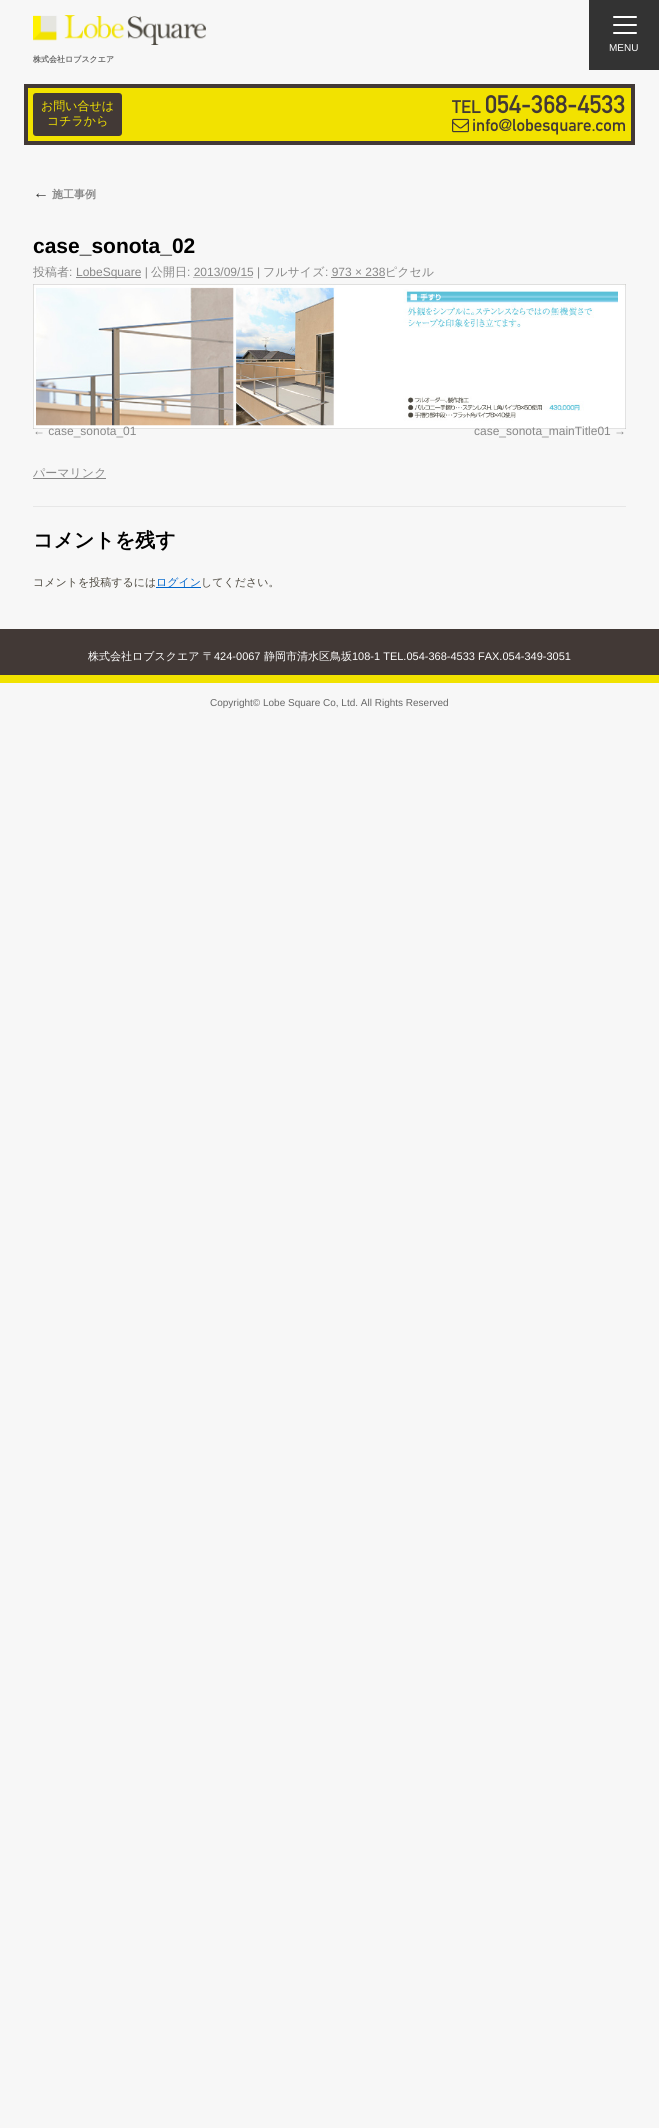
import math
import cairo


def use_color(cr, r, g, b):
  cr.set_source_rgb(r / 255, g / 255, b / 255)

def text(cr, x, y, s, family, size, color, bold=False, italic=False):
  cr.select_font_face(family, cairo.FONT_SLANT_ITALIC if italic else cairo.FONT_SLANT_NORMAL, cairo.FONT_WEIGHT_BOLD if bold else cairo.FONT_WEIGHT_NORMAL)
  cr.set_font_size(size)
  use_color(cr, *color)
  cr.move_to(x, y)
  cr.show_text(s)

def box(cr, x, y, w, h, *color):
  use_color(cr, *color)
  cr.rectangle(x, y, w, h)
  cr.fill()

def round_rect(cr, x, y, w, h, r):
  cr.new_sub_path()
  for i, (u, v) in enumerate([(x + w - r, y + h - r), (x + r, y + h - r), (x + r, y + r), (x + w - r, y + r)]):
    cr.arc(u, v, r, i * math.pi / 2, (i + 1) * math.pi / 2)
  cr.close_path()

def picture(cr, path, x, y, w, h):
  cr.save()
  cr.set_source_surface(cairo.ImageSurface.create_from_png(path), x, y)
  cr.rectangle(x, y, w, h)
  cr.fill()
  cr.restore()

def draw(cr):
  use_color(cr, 247, 247, 247)
  cr.paint()
  box(cr, 589, 0, 70, 70, 51, 51, 51)
  use_color(cr, 255, 255, 255)
  round_rect(cr, 613, 24, 24, 2, 1)
  cr.fill()
  round_rect(cr, 613, 16, 24, 2, 1)
  cr.fill()
  round_rect(cr, 613, 32, 24, 2, 1)
  cr.fill()
  picture(cr, "img_01.png", 33, 15, 173, 30)
  use_color(cr, 242, 226, 0)
  cr.rectangle(26, 86, 607, 57)
  cr.fill_preserve()
  use_color(cr, 66, 57, 54)
  cr.set_line_width(4)
  cr.stroke()
  round_rect(cr, 33, 93, 89, 43, 3)
  cr.fill()
  picture(cr, "img_02.png", 452, 118, 17, 15)
  box(cr, 76, 277, 65, 1, 136, 136, 136)
  cr.new_path()
  cr.move_to(193.5, 277.5)
  cr.line_to(253.5, 277.5)
  cr.set_line_width(1)
  cr.set_dash([1, 1])
  cr.stroke()
  box(cr, 331, 277, 54, 1, 136, 136, 136)
  picture(cr, "img_03.png", 33, 284, 593, 145)
  box(cr, 33, 478, 73, 1, 136, 136, 136)
  box(cr, 33, 506, 593, 1, 231, 231, 231)
  box(cr, 156, 587, 45, 1, 0, 102, 204)
  box(cr, 0, 629, 659, 46, 66, 57, 54)
  box(cr, 0, 675, 659, 8, 241, 226, 0)
  text(cr, 609, 51, "MENU", "Liberation Sans", 10, (255, 255, 255))
  text(cr, 33, 62, "株式会社ロブスクエア", "WenQuanYi Zen Hei", 8, (102, 102, 102), bold=True)
  text(cr, 41, 110, "お問い合せは", "WenQuanYi Zen Hei Medium", 12, (242, 226, 0))
  text(cr, 47, 125, "コチラから", "WenQuanYi Zen Hei Medium", 12, (242, 226, 0))
  text(cr, 452, 113, "TEL", "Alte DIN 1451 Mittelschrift", 18, (66, 57, 54))
  text(cr, 485, 113, "054-368-4533", "Alte DIN 1451 Mittelschrift", 25, (66, 57, 54))
  text(cr, 472, 131, "info@lobesquare.com", "Alte DIN 1451 Mittelschrift", 17, (66, 57, 54))
  text(cr, 33, 198, "←", "Liberation Sans", 16, (51, 51, 51), italic=True)
  text(cr, 52, 198, "施工事例", "WenQuanYi Zen Hei", 11, (136, 136, 136), bold=True)
  text(cr, 33, 253, "case_sonota_02", "Liberation Sans", 21, (0, 0, 0), bold=True)
  text(cr, 33, 276, "投稿者", "WenQuanYi Zen Hei Medium", 12, (136, 136, 136))
  text(cr, 69, 276, ":", "Liberation Sans", 12, (136, 136, 136))
  text(cr, 76, 276, "LobeSquare |", "Liberation Sans", 12, (136, 136, 136))
  text(cr, 151, 276, "公開日", "WenQuanYi Zen Hei Medium", 12, (136, 136, 136))
  text(cr, 187, 276, ": 2013/09/15 |", "Liberation Sans", 12, (136, 136, 136))
  text(cr, 263, 276, "フルサイズ", "WenQuanYi Zen Hei Medium", 12, (136, 136, 136))
  text(cr, 325, 276, ": 973 × 238", "Liberation Sans", 12, (136, 136, 136))
  text(cr, 385, 276, "ピクセル", "WenQuanYi Zen Hei Medium", 12, (136, 136, 136))
  text(cr, 33, 435, "← case_sonota_01", "Liberation Sans", 12, (136, 136, 136))
  text(cr, 474, 435, "case_sonota_mainTitle01 →", "Liberation Sans", 12, (136, 136, 136))
  text(cr, 33, 477, "パーマリンク", "WenQuanYi Zen Hei Medium", 12, (136, 136, 136))
  text(cr, 33, 547, "コメントを残す", "WenQuanYi Zen Hei", 20, (0, 0, 0), bold=True)
  text(cr, 33, 586, "コメントを投稿するには", "WenQuanYi Zen Hei Medium", 11, (76, 72, 63))
  text(cr, 156, 586, "ログイン", "WenQuanYi Zen Hei Medium", 11, (0, 102, 204))
  text(cr, 201, 586, "してください。", "WenQuanYi Zen Hei Medium", 11, (76, 72, 63))
  text(cr, 88, 660, "株式会社ロブスクエア 〒", "WenQuanYi Zen Hei Medium", 11, (255, 255, 255))
  text(cr, 214, 660, "424-0067", "Liberation Sans", 11, (255, 255, 255))
  text(cr, 264, 660, "静岡市清水区鳥坂", "WenQuanYi Zen Hei Medium", 11, (255, 255, 255))
  text(cr, 352, 660, "108-1 TEL.054-368-4533 FAX.054-349-3051", "Liberation Sans", 11, (255, 255, 255))
  text(cr, 210, 706, "Copyright© Lobe Square Co, Ltd. All Rights Reserved", "Liberation Sans", 10, (102, 102, 102))


surface = cairo.ImageSurface(cairo.FORMAT_RGB24, 659, 2128)
cr = cairo.Context(surface)
options = cairo.FontOptions()
options.set_hint_metrics(cairo.HINT_METRICS_OFF)
options.set_hint_style(cairo.HINT_STYLE_NONE)
cr.set_font_options(options)
cr.set_miter_limit(4)
draw(cr)
surface.write_to_png("out.png")
